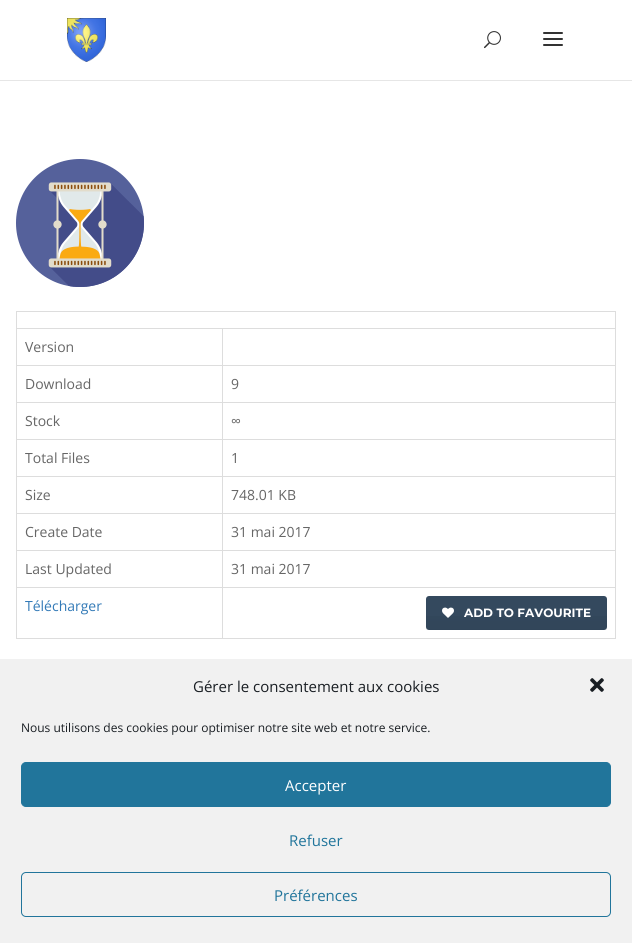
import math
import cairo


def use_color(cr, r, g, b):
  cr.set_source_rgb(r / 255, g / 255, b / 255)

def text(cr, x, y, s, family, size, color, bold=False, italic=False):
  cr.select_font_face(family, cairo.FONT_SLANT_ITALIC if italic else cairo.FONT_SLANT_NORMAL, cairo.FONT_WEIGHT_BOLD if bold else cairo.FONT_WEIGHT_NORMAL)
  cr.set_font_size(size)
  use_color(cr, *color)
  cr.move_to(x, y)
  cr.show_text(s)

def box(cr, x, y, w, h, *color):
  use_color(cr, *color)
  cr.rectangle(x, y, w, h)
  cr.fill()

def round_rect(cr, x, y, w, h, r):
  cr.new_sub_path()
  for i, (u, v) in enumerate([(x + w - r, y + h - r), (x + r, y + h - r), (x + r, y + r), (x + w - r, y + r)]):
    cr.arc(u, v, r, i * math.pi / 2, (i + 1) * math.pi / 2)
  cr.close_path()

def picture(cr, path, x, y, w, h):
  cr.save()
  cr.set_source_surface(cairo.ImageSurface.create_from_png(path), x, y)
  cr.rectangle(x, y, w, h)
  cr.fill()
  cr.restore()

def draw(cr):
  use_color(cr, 255, 255, 255)
  cr.paint()
  box(cr, 0, 80, 632, 1, 230, 230, 230)
  picture(cr, "img_01.png", 67, 18, 39, 44)
  picture(cr, "img_02.png", 484, 31, 17, 18)
  picture(cr, "img_03.png", 543, 32, 20, 14)
  picture(cr, "img_04.png", 16, 159, 128, 128)
  box(cr, 16, 311, 600, 1, 221, 221, 221)
  box(cr, 615, 311, 1, 328, 221, 221, 221)
  box(cr, 16, 638, 600, 1, 221, 221, 221)
  box(cr, 16, 311, 1, 328, 221, 221, 221)
  box(cr, 222, 328, 394, 1, 221, 221, 221)
  box(cr, 222, 365, 394, 1, 221, 221, 221)
  box(cr, 222, 402, 394, 1, 221, 221, 221)
  box(cr, 222, 439, 394, 1, 221, 221, 221)
  box(cr, 222, 476, 394, 1, 221, 221, 221)
  box(cr, 222, 513, 394, 1, 221, 221, 221)
  box(cr, 222, 550, 394, 1, 221, 221, 221)
  box(cr, 222, 587, 394, 1, 221, 221, 221)
  box(cr, 222, 587, 1, 52, 221, 221, 221)
  box(cr, 16, 587, 207, 1, 221, 221, 221)
  box(cr, 222, 550, 1, 38, 221, 221, 221)
  box(cr, 16, 550, 207, 1, 221, 221, 221)
  box(cr, 222, 513, 1, 38, 221, 221, 221)
  box(cr, 16, 513, 207, 1, 221, 221, 221)
  box(cr, 222, 476, 1, 38, 221, 221, 221)
  box(cr, 16, 476, 207, 1, 221, 221, 221)
  box(cr, 222, 439, 1, 38, 221, 221, 221)
  box(cr, 16, 439, 207, 1, 221, 221, 221)
  box(cr, 222, 402, 1, 38, 221, 221, 221)
  box(cr, 16, 402, 207, 1, 221, 221, 221)
  box(cr, 222, 365, 1, 38, 221, 221, 221)
  box(cr, 16, 365, 207, 1, 221, 221, 221)
  box(cr, 222, 328, 1, 38, 221, 221, 221)
  box(cr, 16, 328, 207, 1, 221, 221, 221)
  use_color(cr, 52, 73, 94)
  round_rect(cr, 426, 596, 181, 34, 3)
  cr.fill()
  gradient = cairo.LinearGradient(517, 596, 517, 630)
  gradient.add_color_stop_rgba(0, 0, 0, 0, 0)
  gradient.add_color_stop_rgba(1, 0, 0, 0, 0.05)
  cr.set_source(gradient)
  cr.rectangle(426, 616, 181, 14)
  cr.fill()
  picture(cr, "img_05.png", 442, 607, 12, 11)
  box(cr, 0, 659, 632, 284, 241, 241, 241)
  picture(cr, "img_06.png", 590, 678, 14, 14)
  use_color(cr, 33, 117, 155)
  round_rect(cr, 21.5, 762.5, 589, 44, 4.5)
  cr.fill_preserve()
  cr.set_line_width(1)
  cr.stroke()
  round_rect(cr, 21.5, 872.5, 589, 44, 4.5)
  cr.stroke()
  text(cr, 25, 352, "Version", "Open Sans", 14, (102, 102, 102))
  text(cr, 25, 389, "Download", "Open Sans", 14, (102, 102, 102))
  text(cr, 231, 389, "9", "Open Sans", 14, (102, 102, 102))
  text(cr, 25, 426, "Stock", "Open Sans", 14, (102, 102, 102))
  text(cr, 231, 426, "∞", "Open Sans", 14, (102, 102, 102))
  text(cr, 25, 463, "Total Files", "Open Sans", 14, (102, 102, 102))
  text(cr, 231, 463, "1", "Open Sans", 14, (102, 102, 102))
  text(cr, 25, 500, "Size", "Open Sans", 14, (102, 102, 102))
  text(cr, 231, 500, "748.01 KB", "Open Sans", 14, (102, 102, 102))
  text(cr, 25, 537, "Create Date", "Open Sans", 14, (102, 102, 102))
  text(cr, 231, 537, "31 mai 2017", "Open Sans", 14, (102, 102, 102))
  text(cr, 25, 574, "Last Updated", "Open Sans", 14, (102, 102, 102))
  text(cr, 231, 574, "31 mai 2017", "Open Sans", 14, (102, 102, 102))
  text(cr, 25, 611, "Télécharger", "Open Sans", 14, (51, 122, 183))
  text(cr, 464, 617, "ADD TO FAVOURITE", "Montserrat", 12, (255, 255, 255), bold=True)
  text(cr, 193, 692, "Gérer le consentement aux cookies", "Open Sans", 15, (25, 30, 35))
  text(cr, 21, 732, "Nous utilisons des cookies pour optimiser notre site web et notre service.", "Open Sans", 12, (25, 30, 35))
  text(cr, 285, 791, "Accepter", "Open Sans", 15, (255, 255, 255))
  text(cr, 289, 846, "Refuser", "Open Sans", 15, (33, 117, 155))
  text(cr, 274, 901, "Préférences", "Open Sans", 15, (33, 117, 155))


surface = cairo.ImageSurface(cairo.FORMAT_RGB24, 632, 943)
cr = cairo.Context(surface)
options = cairo.FontOptions()
options.set_hint_metrics(cairo.HINT_METRICS_OFF)
options.set_hint_style(cairo.HINT_STYLE_NONE)
cr.set_font_options(options)
cr.set_miter_limit(4)
draw(cr)
surface.write_to_png("out.png")
